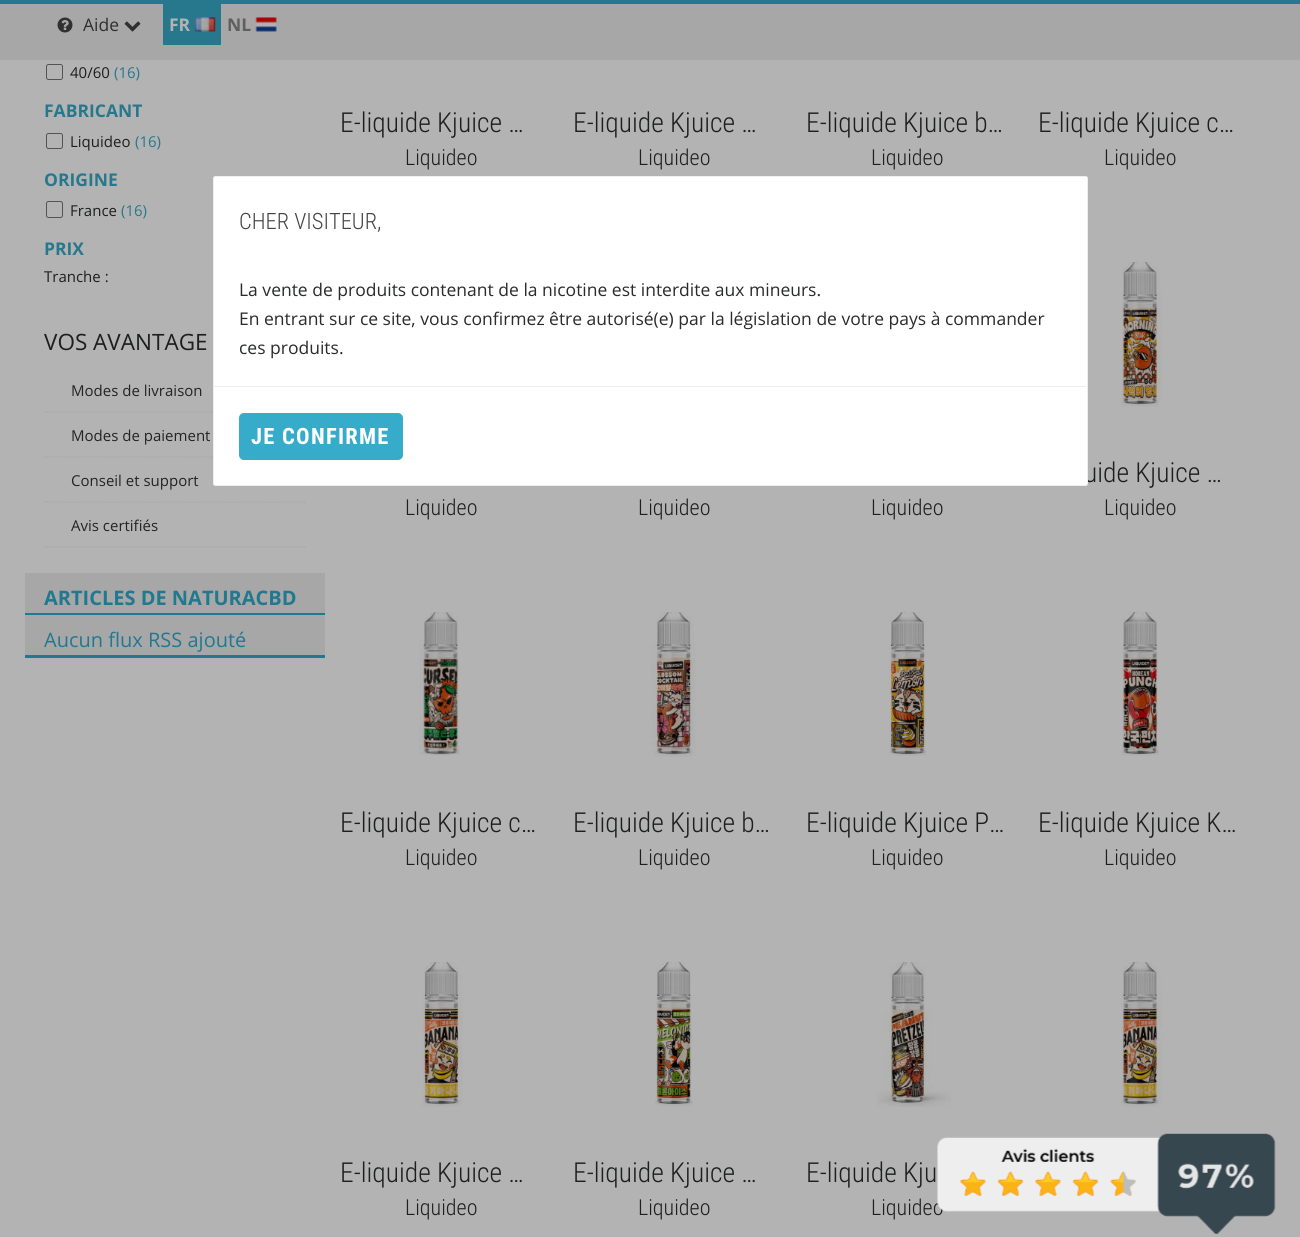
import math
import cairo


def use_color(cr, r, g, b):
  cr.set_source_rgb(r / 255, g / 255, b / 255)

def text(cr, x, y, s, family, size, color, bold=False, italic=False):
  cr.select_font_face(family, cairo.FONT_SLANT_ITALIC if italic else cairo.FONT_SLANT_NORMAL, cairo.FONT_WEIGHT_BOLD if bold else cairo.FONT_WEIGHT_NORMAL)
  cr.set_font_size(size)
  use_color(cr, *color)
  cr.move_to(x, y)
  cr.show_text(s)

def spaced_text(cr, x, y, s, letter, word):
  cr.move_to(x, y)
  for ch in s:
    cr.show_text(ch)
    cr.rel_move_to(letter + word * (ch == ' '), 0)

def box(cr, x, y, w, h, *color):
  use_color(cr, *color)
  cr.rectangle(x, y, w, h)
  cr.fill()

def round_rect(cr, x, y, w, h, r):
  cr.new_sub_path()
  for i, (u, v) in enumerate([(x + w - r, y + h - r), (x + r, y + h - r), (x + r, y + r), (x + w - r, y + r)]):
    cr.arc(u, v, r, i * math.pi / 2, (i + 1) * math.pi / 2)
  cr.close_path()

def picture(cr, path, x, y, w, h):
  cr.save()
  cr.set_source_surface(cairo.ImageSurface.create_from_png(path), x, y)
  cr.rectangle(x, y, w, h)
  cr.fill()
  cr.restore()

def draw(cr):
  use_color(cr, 179, 179, 179)
  cr.paint()
  box(cr, 0, 4, 1300, 56, 167, 167, 167)
  box(cr, 0, 0, 1300, 4, 39, 120, 141)
  picture(cr, "img_01.png", 57, 17, 16, 16)
  picture(cr, "img_02.png", 124, 21, 17, 11)
  box(cr, 163, 4, 58, 41, 39, 120, 141)
  picture(cr, "img_03.png", 194, 17, 22, 15)
  picture(cr, "img_04.png", 255, 17, 22, 15)
  round_rect(cr, 46.5, 64.5, 16, 15, 2)
  use_color(cr, 83, 83, 83)
  cr.set_line_width(1)
  cr.stroke()
  round_rect(cr, 46.5, 133.5, 16, 15, 2)
  cr.stroke()
  round_rect(cr, 46.5, 201.5, 16, 16, 2)
  cr.stroke()
  cr.new_path()
  cr.move_to(44, 412)
  cr.line_to(306, 412)
  use_color(cr, 167, 167, 167)
  cr.set_line_width(1.2)
  cr.set_dash([1.25, 1.25])
  cr.stroke()
  cr.new_path()
  cr.move_to(44, 457)
  cr.line_to(306, 457)
  cr.stroke()
  cr.new_path()
  cr.move_to(44, 502)
  cr.line_to(306, 502)
  cr.stroke()
  cr.new_path()
  cr.move_to(44, 547)
  cr.line_to(306, 547)
  cr.stroke()
  box(cr, 25, 573, 300, 40, 167, 167, 167)
  box(cr, 25, 613, 300, 2, 33, 120, 143)
  box(cr, 25, 615, 300, 40, 167, 167, 167)
  box(cr, 25, 655, 300, 3, 33, 120, 143)
  picture(cr, "img_05.png", 1121, 262, 43, 145)
  picture(cr, "img_06.png", 419, 612, 41, 143)
  picture(cr, "img_07.png", 651, 612, 45, 145)
  picture(cr, "img_08.png", 889, 612, 37, 144)
  picture(cr, "img_09.png", 1121, 612, 38, 144)
  picture(cr, "img_10.png", 1121, 962, 43, 145)
  picture(cr, "img_11.png", 422, 962, 41, 145)
  picture(cr, "img_12.png", 655, 962, 38, 144)
  picture(cr, "img_13.png", 877, 962, 74, 145)
  text(cr, 83, 31, "Aide", "Open Sans", 17.5, (48, 48, 48))
  text(cr, 169, 31, "FR", "Open Sans", 17.5, (179, 179, 179), bold=True)
  text(cr, 227, 31, "NL", "Open Sans", 17.5, (95, 95, 95), bold=True)
  text(cr, 70, 78, "40/60", "Open Sans", 15, (29, 30, 31))
  text(cr, 114, 78, "(16)", "Open Sans", 15, (39, 120, 141))
  text(cr, 44, 117, "FABRICANT", "Open Sans", 17.5, (39, 120, 141), bold=True)
  text(cr, 70, 147, "Liquideo", "Open Sans", 15, (29, 30, 31))
  text(cr, 135, 147, "(16)", "Open Sans", 15, (39, 120, 141))
  text(cr, 44, 186, "ORIGINE", "Open Sans", 17.5, (39, 120, 141), bold=True)
  text(cr, 70, 216, "France", "Open Sans", 15, (29, 30, 31))
  text(cr, 121, 216, "(16)", "Open Sans", 15, (39, 120, 141))
  text(cr, 44, 255, "PRIX", "Open Sans", 17.5, (39, 120, 141), bold=True)
  text(cr, 44, 282, "Tranche :", "Open Sans", 15, (29, 30, 31))
  text(cr, 44, 350, "VOS AVANTAGE", "Open Sans", 22.5, (29, 30, 31))
  text(cr, 71, 396, "Modes de livraison", "Open Sans", 15, (36, 36, 36))
  text(cr, 71, 441, "Modes de paiement", "Open Sans", 15, (36, 36, 36))
  text(cr, 71, 486, "Conseil et support", "Open Sans", 15, (36, 36, 36))
  text(cr, 71, 531, "Avis certifiés", "Open Sans", 15, (36, 36, 36))
  text(cr, 44, 605, "ARTICLES DE NATURACBD", "Open Sans", 20, (33, 120, 143), bold=True)
  text(cr, 44, 647, "Aucun flux RSS ajouté", "Open Sans", 20, (33, 120, 143))
  text(cr, 340, 132, "E-liquide Kjuice …", "Roboto Condensed Light", 27.5, (29, 30, 31))
  text(cr, 405, 165, "Liquideo", "Roboto Condensed Light", 22, (29, 30, 31))
  text(cr, 573, 132, "E-liquide Kjuice …", "Roboto Condensed Light", 27.5, (29, 30, 31))
  text(cr, 638, 165, "Liquideo", "Roboto Condensed Light", 22, (29, 30, 31))
  text(cr, 806, 132, "E-liquide Kjuice b…", "Roboto Condensed Light", 27.5, (29, 30, 31))
  text(cr, 871, 165, "Liquideo", "Roboto Condensed Light", 22, (29, 30, 31))
  text(cr, 1038, 132, "E-liquide Kjuice c…", "Roboto Condensed Light", 27.5, (29, 30, 31))
  text(cr, 1104, 165, "Liquideo", "Roboto Condensed Light", 22, (29, 30, 31))
  text(cr, 405, 515, "Liquideo", "Roboto Condensed Light", 22, (29, 30, 31))
  text(cr, 638, 515, "Liquideo", "Roboto Condensed Light", 22, (29, 30, 31))
  text(cr, 871, 515, "Liquideo", "Roboto Condensed Light", 22, (29, 30, 31))
  text(cr, 1084, 482, "uide Kjuice …", "Roboto Condensed Light", 27.5, (29, 30, 31))
  text(cr, 1104, 515, "Liquideo", "Roboto Condensed Light", 22, (29, 30, 31))
  text(cr, 340, 832, "E-liquide Kjuice c…", "Roboto Condensed Light", 27.5, (29, 30, 31))
  text(cr, 405, 865, "Liquideo", "Roboto Condensed Light", 22, (29, 30, 31))
  text(cr, 573, 832, "E-liquide Kjuice b…", "Roboto Condensed Light", 27.5, (29, 30, 31))
  text(cr, 638, 865, "Liquideo", "Roboto Condensed Light", 22, (29, 30, 31))
  text(cr, 806, 832, "E-liquide Kjuice P…", "Roboto Condensed Light", 27.5, (29, 30, 31))
  text(cr, 871, 865, "Liquideo", "Roboto Condensed Light", 22, (29, 30, 31))
  text(cr, 1038, 832, "E-liquide Kjuice K…", "Roboto Condensed Light", 27.5, (29, 30, 31))
  text(cr, 1104, 865, "Liquideo", "Roboto Condensed Light", 22, (29, 30, 31))
  text(cr, 340, 1182, "E-liquide Kjuice …", "Roboto Condensed Light", 27.5, (29, 30, 31))
  text(cr, 405, 1215, "Liquideo", "Roboto Condensed Light", 22, (29, 30, 31))
  text(cr, 573, 1182, "E-liquide Kjuice …", "Roboto Condensed Light", 27.5, (29, 30, 31))
  text(cr, 638, 1215, "Liquideo", "Roboto Condensed Light", 22, (29, 30, 31))
  text(cr, 806, 1182, "E-liquide Kju", "Roboto Condensed Light", 27.5, (29, 30, 31))
  text(cr, 871, 1215, "Liquideo", "Roboto Condensed Light", 22, (29, 30, 31))
  picture(cr, "img_14.png", 937, 1133, 339, 101)
  use_color(cr, 255, 255, 255)
  round_rect(cr, 213.5, 176.5, 874, 309, 2)
  cr.fill_preserve()
  use_color(cr, 238, 238, 238)
  cr.set_line_width(1)
  cr.set_dash([])
  cr.stroke()
  text(cr, 239, 229, "CHER VISITEUR,", "Roboto Condensed Light", 22.5, (68, 68, 68))
  text(cr, 239, 296, "La vente de produits contenant de la nicotine est interdite aux mineurs.", "Open Sans", 17.5, (42, 43, 44))
  text(cr, 239, 325, "En entrant sur ce site, vous confirmez être autorisé(e) par la législation de votre pays à commander", "Open Sans", 17.5, (42, 43, 44))
  text(cr, 239, 354, "ces produits.", "Open Sans", 17.5, (42, 43, 44))
  box(cr, 214, 386, 872, 1, 238, 238, 238)
  use_color(cr, 55, 171, 202)
  round_rect(cr, 239, 413, 164, 47, 5)
  cr.fill()
  cr.select_font_face("Roboto Condensed", cairo.FONT_SLANT_NORMAL, cairo.FONT_WEIGHT_BOLD)
  cr.set_font_size(22.5)
  use_color(cr, 255, 255, 255)
  spaced_text(cr, 251, 444, "JE CONFIRME", 1.25, 0)


surface = cairo.ImageSurface(cairo.FORMAT_RGB24, 1300, 1237)
cr = cairo.Context(surface)
options = cairo.FontOptions()
options.set_hint_metrics(cairo.HINT_METRICS_OFF)
options.set_hint_style(cairo.HINT_STYLE_NONE)
cr.set_font_options(options)
cr.set_miter_limit(4)
draw(cr)
surface.write_to_png("out.png")
